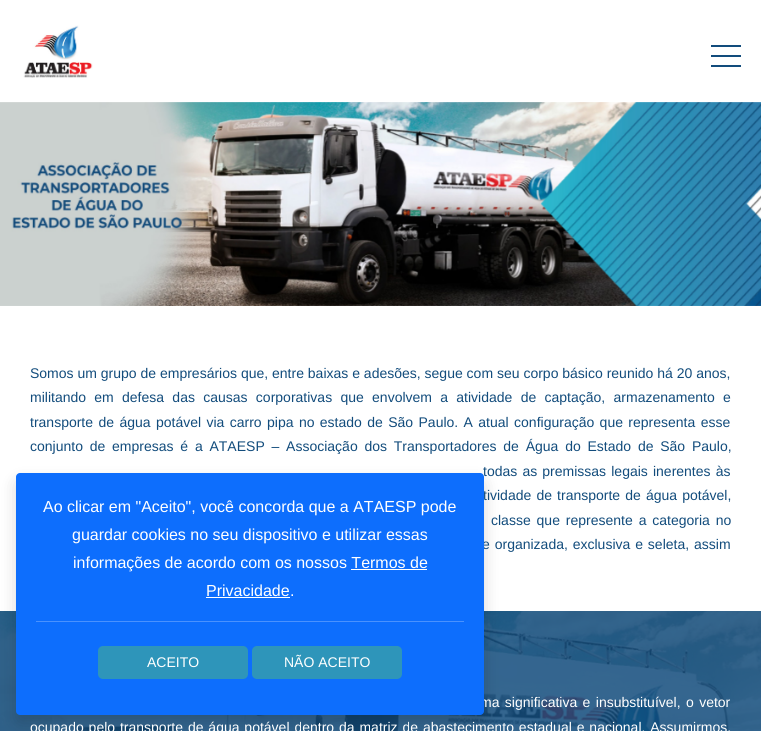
import math
import cairo


def use_color(cr, r, g, b):
  cr.set_source_rgb(r / 255, g / 255, b / 255)

def text(cr, x, y, s, family, size, color, bold=False, italic=False):
  cr.select_font_face(family, cairo.FONT_SLANT_ITALIC if italic else cairo.FONT_SLANT_NORMAL, cairo.FONT_WEIGHT_BOLD if bold else cairo.FONT_WEIGHT_NORMAL)
  cr.set_font_size(size)
  use_color(cr, *color)
  cr.move_to(x, y)
  cr.show_text(s)

def spaced_text(cr, x, y, s, letter, word):
  cr.move_to(x, y)
  for ch in s:
    cr.show_text(ch)
    cr.rel_move_to(letter + word * (ch == ' '), 0)

def box(cr, x, y, w, h, *color):
  use_color(cr, *color)
  cr.rectangle(x, y, w, h)
  cr.fill()

def round_rect(cr, x, y, w, h, r):
  cr.new_sub_path()
  for i, (u, v) in enumerate([(x + w - r, y + h - r), (x + r, y + h - r), (x + r, y + r), (x + w - r, y + r)]):
    cr.arc(u, v, r, i * math.pi / 2, (i + 1) * math.pi / 2)
  cr.close_path()

def shadow(cr, x, y, w, h, r, blur, alpha):
  cr.push_group_with_content(cairo.CONTENT_ALPHA)
  cr.set_operator(cairo.OPERATOR_SOURCE)
  for i in range(15, -16, -2):
    e = blur * i / 6
    if min(w, h) + 2 * e > 0:
      cr.set_source_rgba(0, 0, 0, alpha * math.erfc((i - 1) / 8.5) / 2)
      round_rect(cr, x - e, y - e, w + 2 * e, h + 2 * e, max(0, min(r + e + blur * .6, min(w, h) / 2 + e)))
      cr.fill()
  cr.mask(cr.pop_group())

def picture(cr, path, x, y, w, h):
  cr.save()
  cr.set_source_surface(cairo.ImageSurface.create_from_png(path), x, y)
  cr.rectangle(x, y, w, h)
  cr.fill()
  cr.restore()

def draw(cr):
  use_color(cr, 255, 255, 255)
  cr.paint()
  picture(cr, "img_01.png", 23, 25, 70, 53)
  box(cr, 711, 55, 30, 2, 18, 76, 124)
  box(cr, 711, 45, 30, 2, 18, 76, 124)
  box(cr, 711, 65, 30, 2, 18, 76, 124)
  picture(cr, "img_02.png", 0, 102, 761, 204)
  picture(cr, "img_03.png", 0, 611, 761, 120)
  use_color(cr, 0, 0, 0)
  shadow(cr, 16, 481, 468, 242, 4, 8, 0.15)
  text(cr, 30, 378, "Somos um grupo de empresários que, entre baixas e adesões, segue com seu corpo básico reunido há 20 anos,", "Liberation Sans", 14, (18, 76, 124))
  spaced_text(cr, 30, 402, "militando em defesa das causas corporativas que envolvem a atividade de captação, armazenamento e", 0, 4.4)
  spaced_text(cr, 30, 427, "transporte de água potável via carro pipa no estado de São Paulo. A atual configuração que representa esse", 0, 1.5)
  spaced_text(cr, 30, 451, "conjunto de empresas é a ATAESP – Associação dos Transportadores de Água do Estado de São Paulo,", 0, 2.9)
  spaced_text(cr, 483, 476, "todas as premissas legais inerentes às", 0, 1.25)
  spaced_text(cr, 483, 500, "tividade de transporte de água potável,", 0, 1.25)
  spaced_text(cr, 491, 525, "classe que represente a categoria no", 0, 2)
  spaced_text(cr, 482, 549, "e organizada, exclusiva e seleta, assim", 0, 1)
  use_color(cr, 255, 255, 255)
  spaced_text(cr, 480, 707, "ma significativa e insubstituível, o vetor", 0, 1.5)
  spaced_text(cr, 30, 732, "ocupado pelo transporte de água potável dentro da matriz de abastecimento estadual e nacional. Assumirmos,", 0, 1)
  use_color(cr, 13, 110, 253)
  round_rect(cr, 16, 473, 468, 242, 4)
  cr.fill()
  text(cr, 43, 512, "Ao clicar em \"Aceito\", você concorda que a ATAESP pode", "Liberation Sans", 16, (255, 255, 255))
  text(cr, 72, 540, "guardar cookies no seu dispositivo e utilizar essas", "Liberation Sans", 16, (255, 255, 255))
  text(cr, 73, 568, "informações de acordo com os nossos Termos de", "Liberation Sans", 16, (255, 255, 255))
  text(cr, 206, 596, "Privacidade", "Liberation Sans", 16, (255, 255, 255))
  box(cr, 351, 569, 76, 1, 255, 255, 255)
  box(cr, 206, 597, 84, 1, 255, 255, 255)
  text(cr, 290, 596, ".", "Liberation Sans", 16, (255, 255, 255))
  box(cr, 36, 621, 428, 1, 74, 146, 254)
  use_color(cr, 46, 149, 186)
  round_rect(cr, 98, 646, 150, 33, 5)
  cr.fill()
  text(cr, 147, 667, "ACEITO", "Liberation Sans", 14, (255, 255, 255))
  use_color(cr, 46, 149, 186)
  round_rect(cr, 252, 646, 150, 33, 5)
  cr.fill()
  text(cr, 284, 667, "NÃO ACEITO", "Liberation Sans", 14, (255, 255, 255))


surface = cairo.ImageSurface(cairo.FORMAT_RGB24, 761, 731)
cr = cairo.Context(surface)
options = cairo.FontOptions()
options.set_hint_metrics(cairo.HINT_METRICS_OFF)
options.set_hint_style(cairo.HINT_STYLE_NONE)
cr.set_font_options(options)
cr.set_miter_limit(4)
draw(cr)
surface.write_to_png("out.png")
